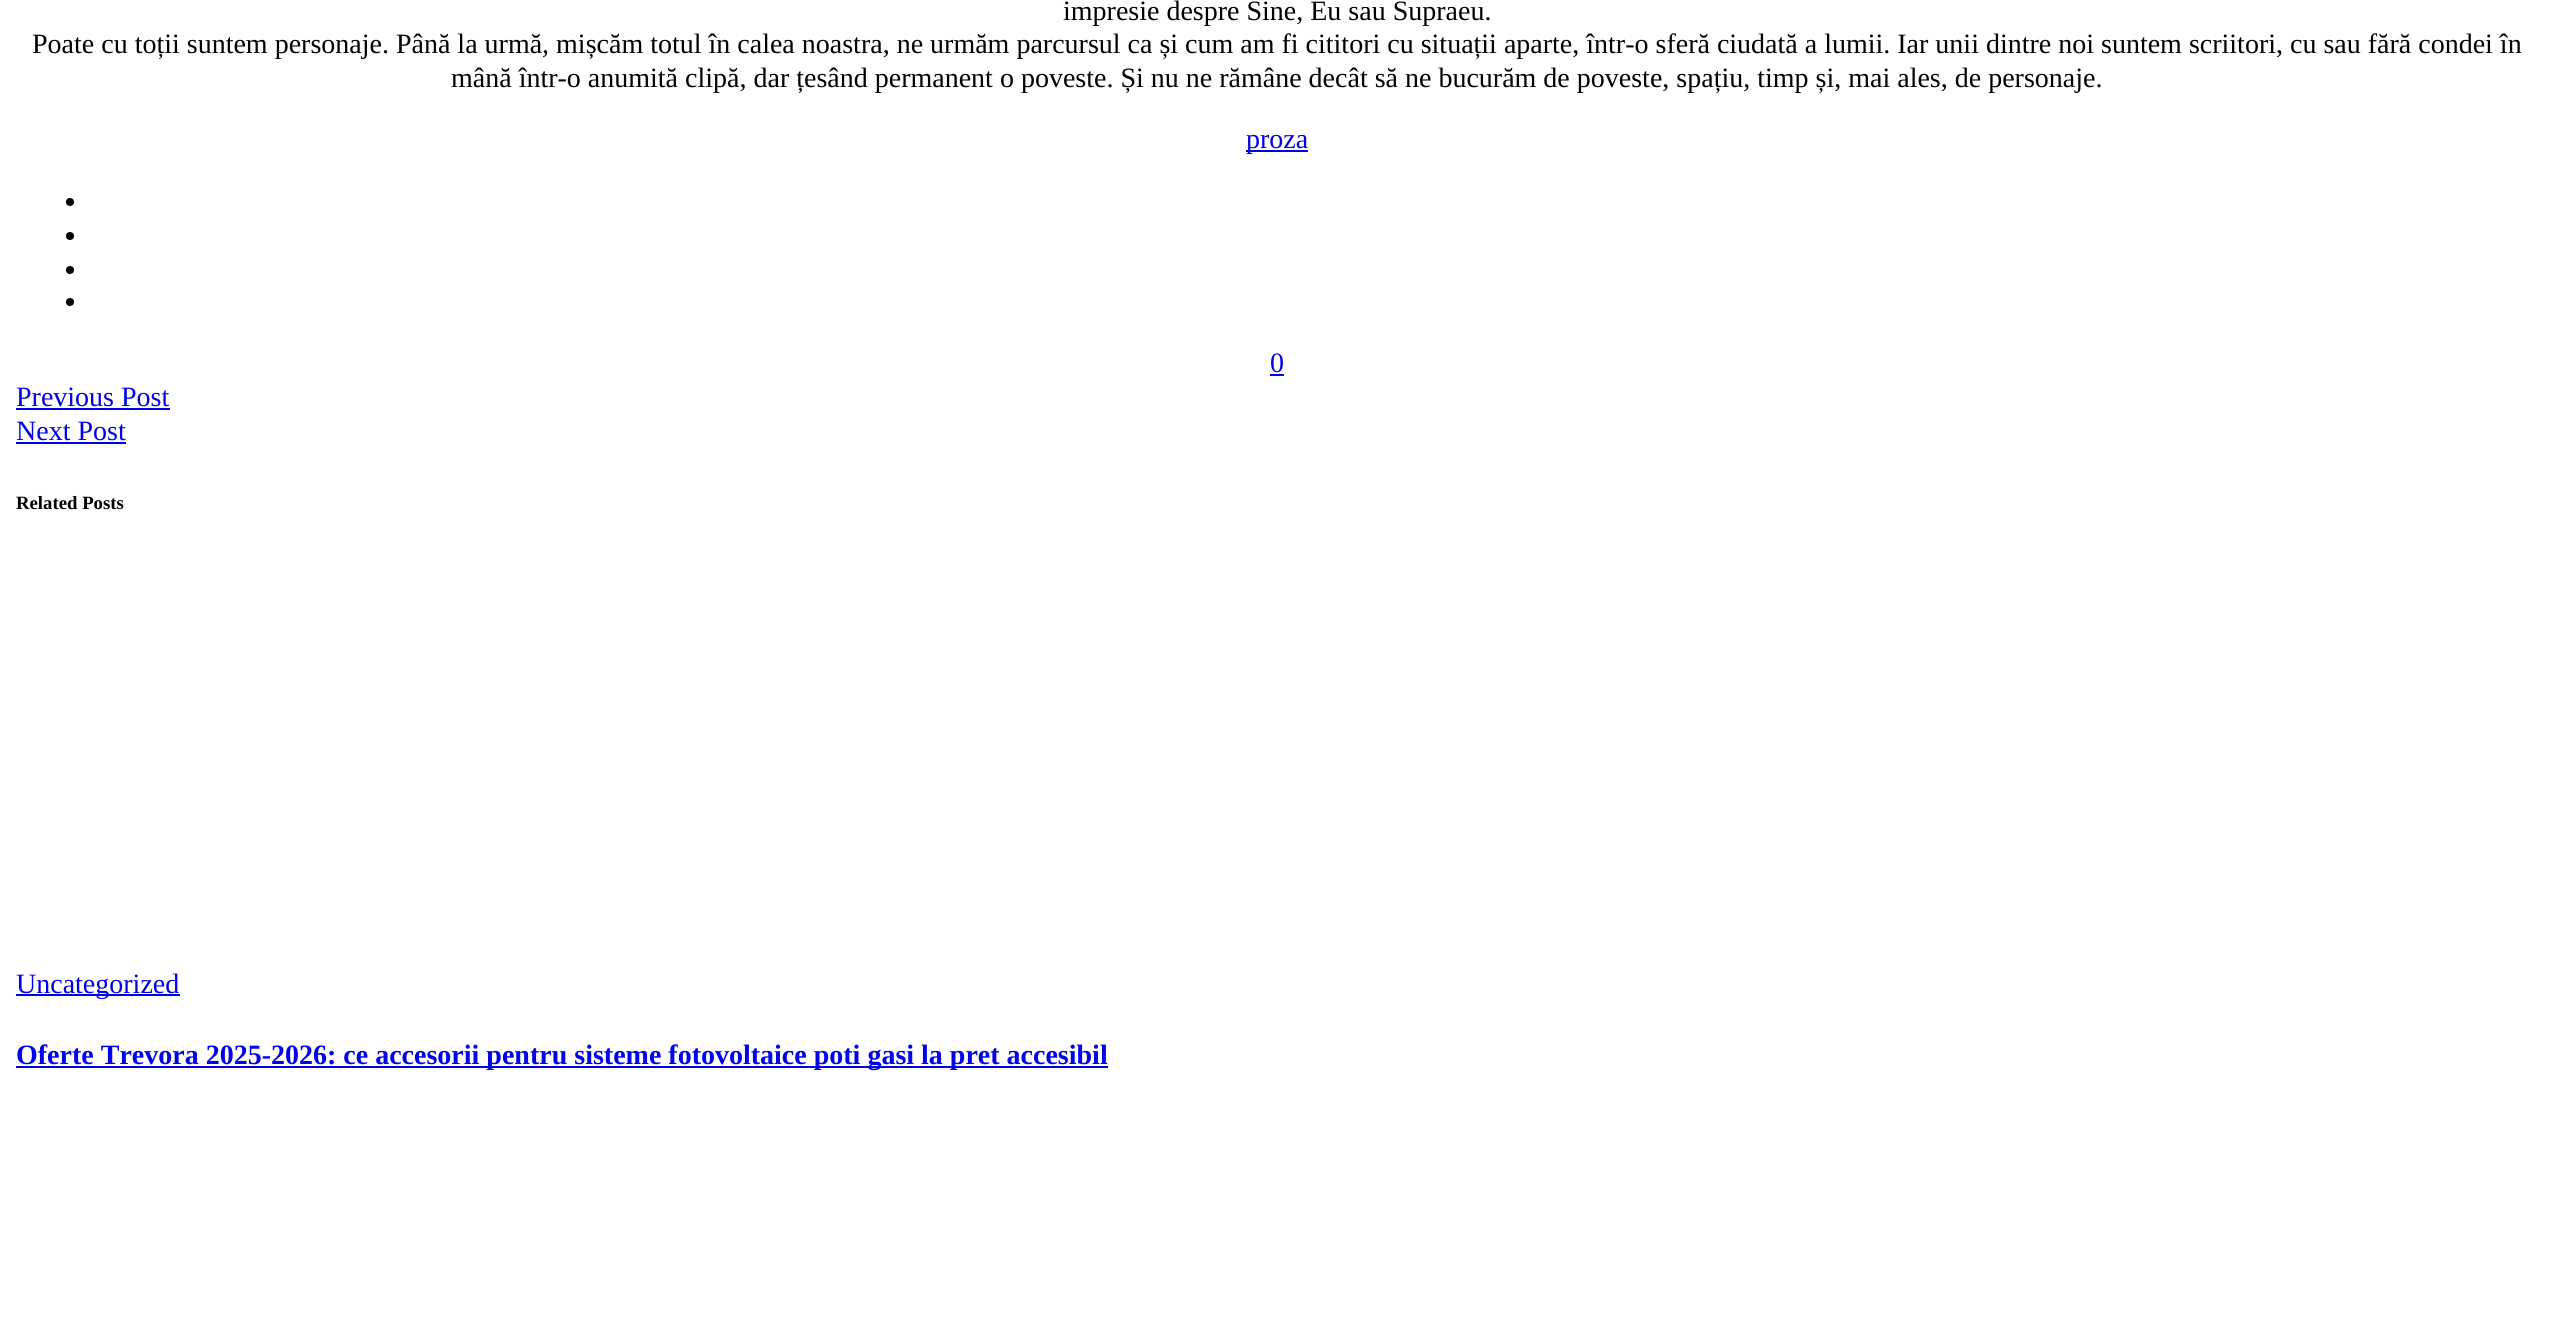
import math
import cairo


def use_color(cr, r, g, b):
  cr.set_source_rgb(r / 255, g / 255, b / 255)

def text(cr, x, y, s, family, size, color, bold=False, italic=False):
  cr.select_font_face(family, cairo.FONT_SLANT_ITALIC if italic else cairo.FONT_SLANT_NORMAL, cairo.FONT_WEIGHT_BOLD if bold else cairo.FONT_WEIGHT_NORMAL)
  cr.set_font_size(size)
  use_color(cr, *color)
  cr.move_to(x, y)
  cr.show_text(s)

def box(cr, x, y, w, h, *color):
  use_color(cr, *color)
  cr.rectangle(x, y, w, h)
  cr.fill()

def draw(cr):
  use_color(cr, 255, 255, 255)
  cr.paint()
  box(cr, 1246, 150, 62, 2, 0, 0, 238)
  use_color(cr, 0, 0, 0)
  cr.arc(70, 202, 4, 0, 2 * math.pi)
  cr.fill()
  cr.arc(70, 236, 4, 0, 2 * math.pi)
  cr.fill()
  cr.arc(70, 270, 4, 0, 2 * math.pi)
  cr.fill()
  cr.arc(70, 302, 4, 0, 2 * math.pi)
  cr.fill()
  box(cr, 1270, 374, 14, 2, 0, 0, 238)
  box(cr, 16, 408, 154, 2, 0, 0, 238)
  box(cr, 16, 442, 110, 2, 0, 0, 238)
  box(cr, 16, 994, 164, 2, 0, 0, 238)
  box(cr, 16, 1066, 1092, 2, 0, 0, 238)
  text(cr, 1063, 20, "impresie despre Sine, Eu sau Supraeu.", "Liberation Serif", 28, (0, 0, 0))
  text(cr, 32, 53, "Poate cu toții suntem personaje. Până la urmă, mișcăm totul în calea noastra, ne urmăm parcursul ca și cum am fi cititori cu situații aparte, într-o sferă ciudată a lumii. Iar unii dintre noi suntem scriitori, cu sau fără condei în", "Liberation Serif", 28, (0, 0, 0))
  text(cr, 451, 87, "mână într-o anumită clipă, dar țesând permanent o poveste. Și nu ne rămâne decât să ne bucurăm de poveste, spațiu, timp și, mai ales, de personaje.", "Liberation Serif", 28, (0, 0, 0))
  text(cr, 1246, 148, "proza", "Liberation Serif", 28, (0, 0, 238))
  text(cr, 1270, 372, "0", "Liberation Serif", 28, (0, 0, 238))
  text(cr, 16, 406, "Previous Post", "Liberation Serif", 28, (0, 0, 238))
  text(cr, 16, 440, "Next Post", "Liberation Serif", 28, (0, 0, 238))
  text(cr, 16, 509, "Related Posts", "Liberation Serif", 18.75, (0, 0, 0), bold=True)
  text(cr, 16, 993, "Uncategorized", "Liberation Serif", 28, (0, 0, 238))
  text(cr, 16, 1064, "Oferte Trevora 2025-2026: ce accesorii pentru sisteme fotovoltaice poti gasi la pret accesibil", "Liberation Serif", 28, (0, 0, 238), bold=True)


surface = cairo.ImageSurface(cairo.FORMAT_RGB24, 2553, 1330)
cr = cairo.Context(surface)
options = cairo.FontOptions()
options.set_hint_metrics(cairo.HINT_METRICS_OFF)
options.set_hint_style(cairo.HINT_STYLE_NONE)
cr.set_font_options(options)
cr.set_miter_limit(4)
draw(cr)
surface.write_to_png("out.png")
